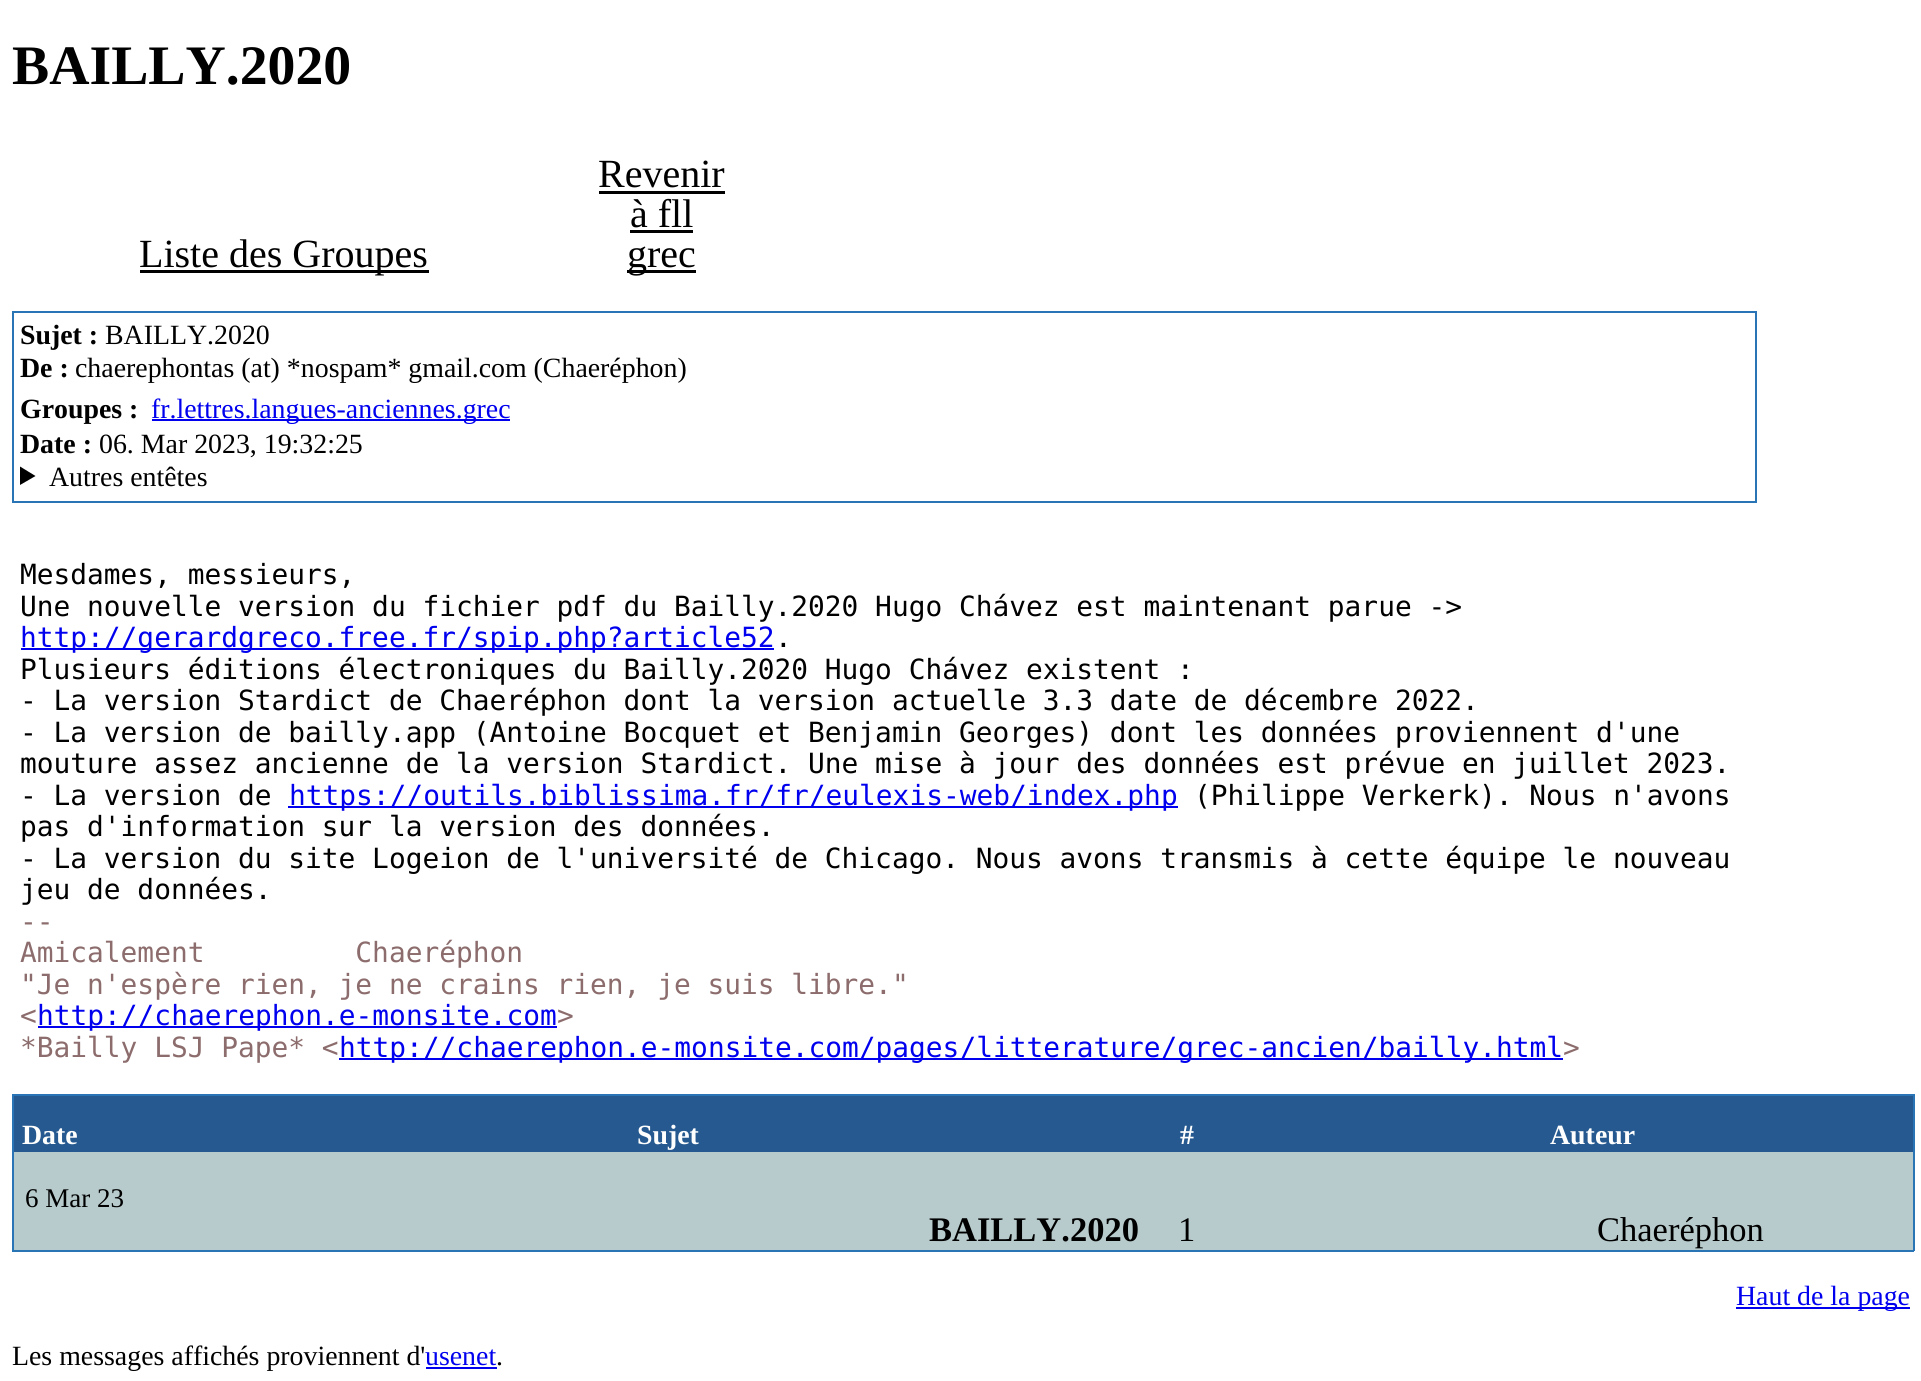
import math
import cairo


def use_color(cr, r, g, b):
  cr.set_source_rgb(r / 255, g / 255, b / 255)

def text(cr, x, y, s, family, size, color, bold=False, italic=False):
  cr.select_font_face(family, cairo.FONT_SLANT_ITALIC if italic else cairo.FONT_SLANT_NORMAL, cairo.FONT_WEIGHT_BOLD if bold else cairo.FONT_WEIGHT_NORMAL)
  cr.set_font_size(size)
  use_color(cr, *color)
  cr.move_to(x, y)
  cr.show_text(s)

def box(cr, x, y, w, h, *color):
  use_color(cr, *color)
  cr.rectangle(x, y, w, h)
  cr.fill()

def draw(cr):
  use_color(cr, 255, 255, 255)
  cr.paint()
  box(cr, 140, 270, 289, 3, 0, 0, 0)
  box(cr, 599, 191, 126, 3, 0, 0, 0)
  box(cr, 630, 230, 63, 3, 0, 0, 0)
  box(cr, 627, 270, 69, 3, 0, 0, 0)
  cr.rectangle(13, 312, 1743, 190)
  use_color(cr, 41, 116, 180)
  cr.stroke()
  box(cr, 152, 419, 358, 2, 0, 0, 238)
  use_color(cr, 0, 0, 0)
  cr.new_path()
  cr.move_to(20, 466.5)
  cr.line_to(35.5, 476)
  cr.line_to(20, 485)
  cr.close_path()
  cr.fill()
  box(cr, 21, 648, 753, 2, 0, 0, 238)
  box(cr, 288, 806, 890, 2, 0, 0, 238)
  box(cr, 38, 1026, 519, 2, 0, 0, 238)
  box(cr, 339, 1058, 1224, 2, 0, 0, 238)
  box(cr, 12, 1094, 1902, 2, 41, 116, 180)
  box(cr, 1913, 1094, 2, 157, 41, 116, 180)
  box(cr, 12, 1250, 1902, 2, 41, 116, 180)
  box(cr, 12, 1094, 2, 157, 41, 116, 180)
  box(cr, 14, 1096, 1899, 56, 38, 89, 143)
  box(cr, 14, 1152, 1899, 98, 184, 203, 204)
  box(cr, 1736, 1307, 174, 2, 0, 0, 238)
  box(cr, 426, 1367, 71, 2, 0, 0, 238)
  text(cr, 12, 84, "BAILLY.2020", "Liberation Serif", 55.75, (0, 0, 0), bold=True)
  text(cr, 139, 267, "Liste des Groupes", "Liberation Serif", 40, (0, 0, 0))
  text(cr, 598, 187, "Revenir", "Liberation Serif", 40, (0, 0, 0))
  text(cr, 630, 227, "à fll", "Liberation Serif", 40, (0, 0, 0))
  text(cr, 627, 267, "grec", "Liberation Serif", 40, (0, 0, 0))
  text(cr, 20, 344, "Sujet :", "Liberation Serif", 27.85, (0, 0, 0), bold=True)
  text(cr, 105, 344, "BAILLY.2020", "Liberation Serif", 27.85, (0, 0, 0))
  text(cr, 20, 377, "De :", "Liberation Serif", 27.85, (0, 0, 0), bold=True)
  text(cr, 75, 377, "chaerephontas (at) *nospam* gmail.com (Chaeréphon)", "Liberation Serif", 27.85, (0, 0, 0))
  text(cr, 20, 418, "Groupes :", "Liberation Serif", 27.85, (0, 0, 0), bold=True)
  text(cr, 151, 418, "fr.lettres.langues-anciennes.grec", "Liberation Serif", 27.85, (0, 0, 238))
  text(cr, 20, 453, "Date :", "Liberation Serif", 27.85, (0, 0, 0), bold=True)
  text(cr, 99, 453, "06. Mar 2023, 19:32:25", "Liberation Serif", 27.85, (0, 0, 0))
  text(cr, 49, 486, "Autres entêtes", "Liberation Serif", 27.85, (0, 0, 0))
  text(cr, 20, 584, "Mesdames, messieurs,", "DejaVu Sans Mono", 27.85, (0, 0, 0))
  text(cr, 20, 616, "Une nouvelle version du fichier pdf du Bailly.2020 Hugo Chávez est maintenant parue ->", "DejaVu Sans Mono", 27.85, (0, 0, 0))
  text(cr, 20, 647, "http://gerardgreco.free.fr/spip.php?article52", "DejaVu Sans Mono", 27.85, (0, 0, 238))
  text(cr, 775, 647, ".", "DejaVu Sans Mono", 27.85, (0, 0, 0))
  text(cr, 20, 679, "Plusieurs éditions électroniques du Bailly.2020 Hugo Chávez existent :", "DejaVu Sans Mono", 27.85, (0, 0, 0))
  text(cr, 20, 710, "- La version Stardict de Chaeréphon dont la version actuelle 3.3 date de décembre 2022.", "DejaVu Sans Mono", 27.85, (0, 0, 0))
  text(cr, 20, 742, "- La version de bailly.app (Antoine Bocquet et Benjamin Georges) dont les données proviennent d'une", "DejaVu Sans Mono", 27.85, (0, 0, 0))
  text(cr, 20, 773, "mouture assez ancienne de la version Stardict. Une mise à jour des données est prévue en juillet 2023.", "DejaVu Sans Mono", 27.85, (0, 0, 0))
  text(cr, 20, 805, "- La version de", "DejaVu Sans Mono", 27.85, (0, 0, 0))
  text(cr, 289, 805, "https://outils.biblissima.fr/fr/eulexis-web/index.php", "DejaVu Sans Mono", 27.85, (0, 0, 238))
  text(cr, 1194, 805, "(Philippe Verkerk). Nous n'avons", "DejaVu Sans Mono", 27.85, (0, 0, 0))
  text(cr, 20, 836, "pas d'information sur la version des données.", "DejaVu Sans Mono", 27.85, (0, 0, 0))
  text(cr, 20, 868, "- La version du site Logeion de l'université de Chicago. Nous avons transmis à cette équipe le nouveau", "DejaVu Sans Mono", 27.85, (0, 0, 0))
  text(cr, 20, 899, "jeu de données.", "DejaVu Sans Mono", 27.85, (0, 0, 0))
  text(cr, 20, 931, "--", "DejaVu Sans Mono", 27.85, (140, 108, 108))
  text(cr, 20, 962, "Amicalement         Chaeréphon", "DejaVu Sans Mono", 27.85, (140, 108, 108))
  text(cr, 20, 994, "\"Je n'espère rien, je ne crains rien, je suis libre.\"", "DejaVu Sans Mono", 27.85, (140, 108, 108))
  text(cr, 20, 1025, "<", "DejaVu Sans Mono", 27.85, (140, 108, 108))
  text(cr, 37, 1025, "http://chaerephon.e-monsite.com", "DejaVu Sans Mono", 27.85, (0, 0, 238))
  text(cr, 557, 1025, ">", "DejaVu Sans Mono", 27.85, (140, 108, 108))
  text(cr, 20, 1057, "*Bailly LSJ Pape* <", "DejaVu Sans Mono", 27.85, (140, 108, 108))
  text(cr, 339, 1057, "http://chaerephon.e-monsite.com/pages/litterature/grec-ancien/bailly.html", "DejaVu Sans Mono", 27.85, (0, 0, 238))
  text(cr, 1563, 1057, ">", "DejaVu Sans Mono", 27.85, (140, 108, 108))
  text(cr, 22, 1144, "Date", "Liberation Serif", 27.85, (255, 255, 255), bold=True)
  text(cr, 637, 1144, "Sujet", "Liberation Serif", 27.85, (255, 255, 255), bold=True)
  text(cr, 1180, 1144, "#", "Liberation Serif", 27.85, (255, 255, 255), bold=True)
  text(cr, 1550, 1144, "Auteur", "Liberation Serif", 27.85, (255, 255, 255), bold=True)
  text(cr, 25, 1207, "6 Mar 23", "Liberation Serif", 27, (0, 0, 0))
  text(cr, 929, 1241, "BAILLY.2020", "Liberation Serif", 34.5, (0, 0, 0), bold=True)
  text(cr, 1178, 1241, "1", "Liberation Serif", 34.5, (0, 0, 0))
  text(cr, 1597, 1241, "Chaeréphon", "Liberation Serif", 34.5, (0, 0, 0))
  text(cr, 1736, 1305, "Haut de la page", "Liberation Serif", 27.85, (0, 0, 238))
  text(cr, 12, 1365, "Les messages affichés proviennent d'", "Liberation Serif", 27.85, (0, 0, 0))
  text(cr, 425, 1365, "usenet", "Liberation Serif", 27.85, (0, 0, 238))
  text(cr, 496, 1365, ".", "Liberation Serif", 27.85, (0, 0, 0))


surface = cairo.ImageSurface(cairo.FORMAT_RGB24, 1921, 1381)
cr = cairo.Context(surface)
options = cairo.FontOptions()
options.set_hint_metrics(cairo.HINT_METRICS_OFF)
options.set_hint_style(cairo.HINT_STYLE_NONE)
cr.set_font_options(options)
cr.set_miter_limit(4)
draw(cr)
surface.write_to_png("out.png")
